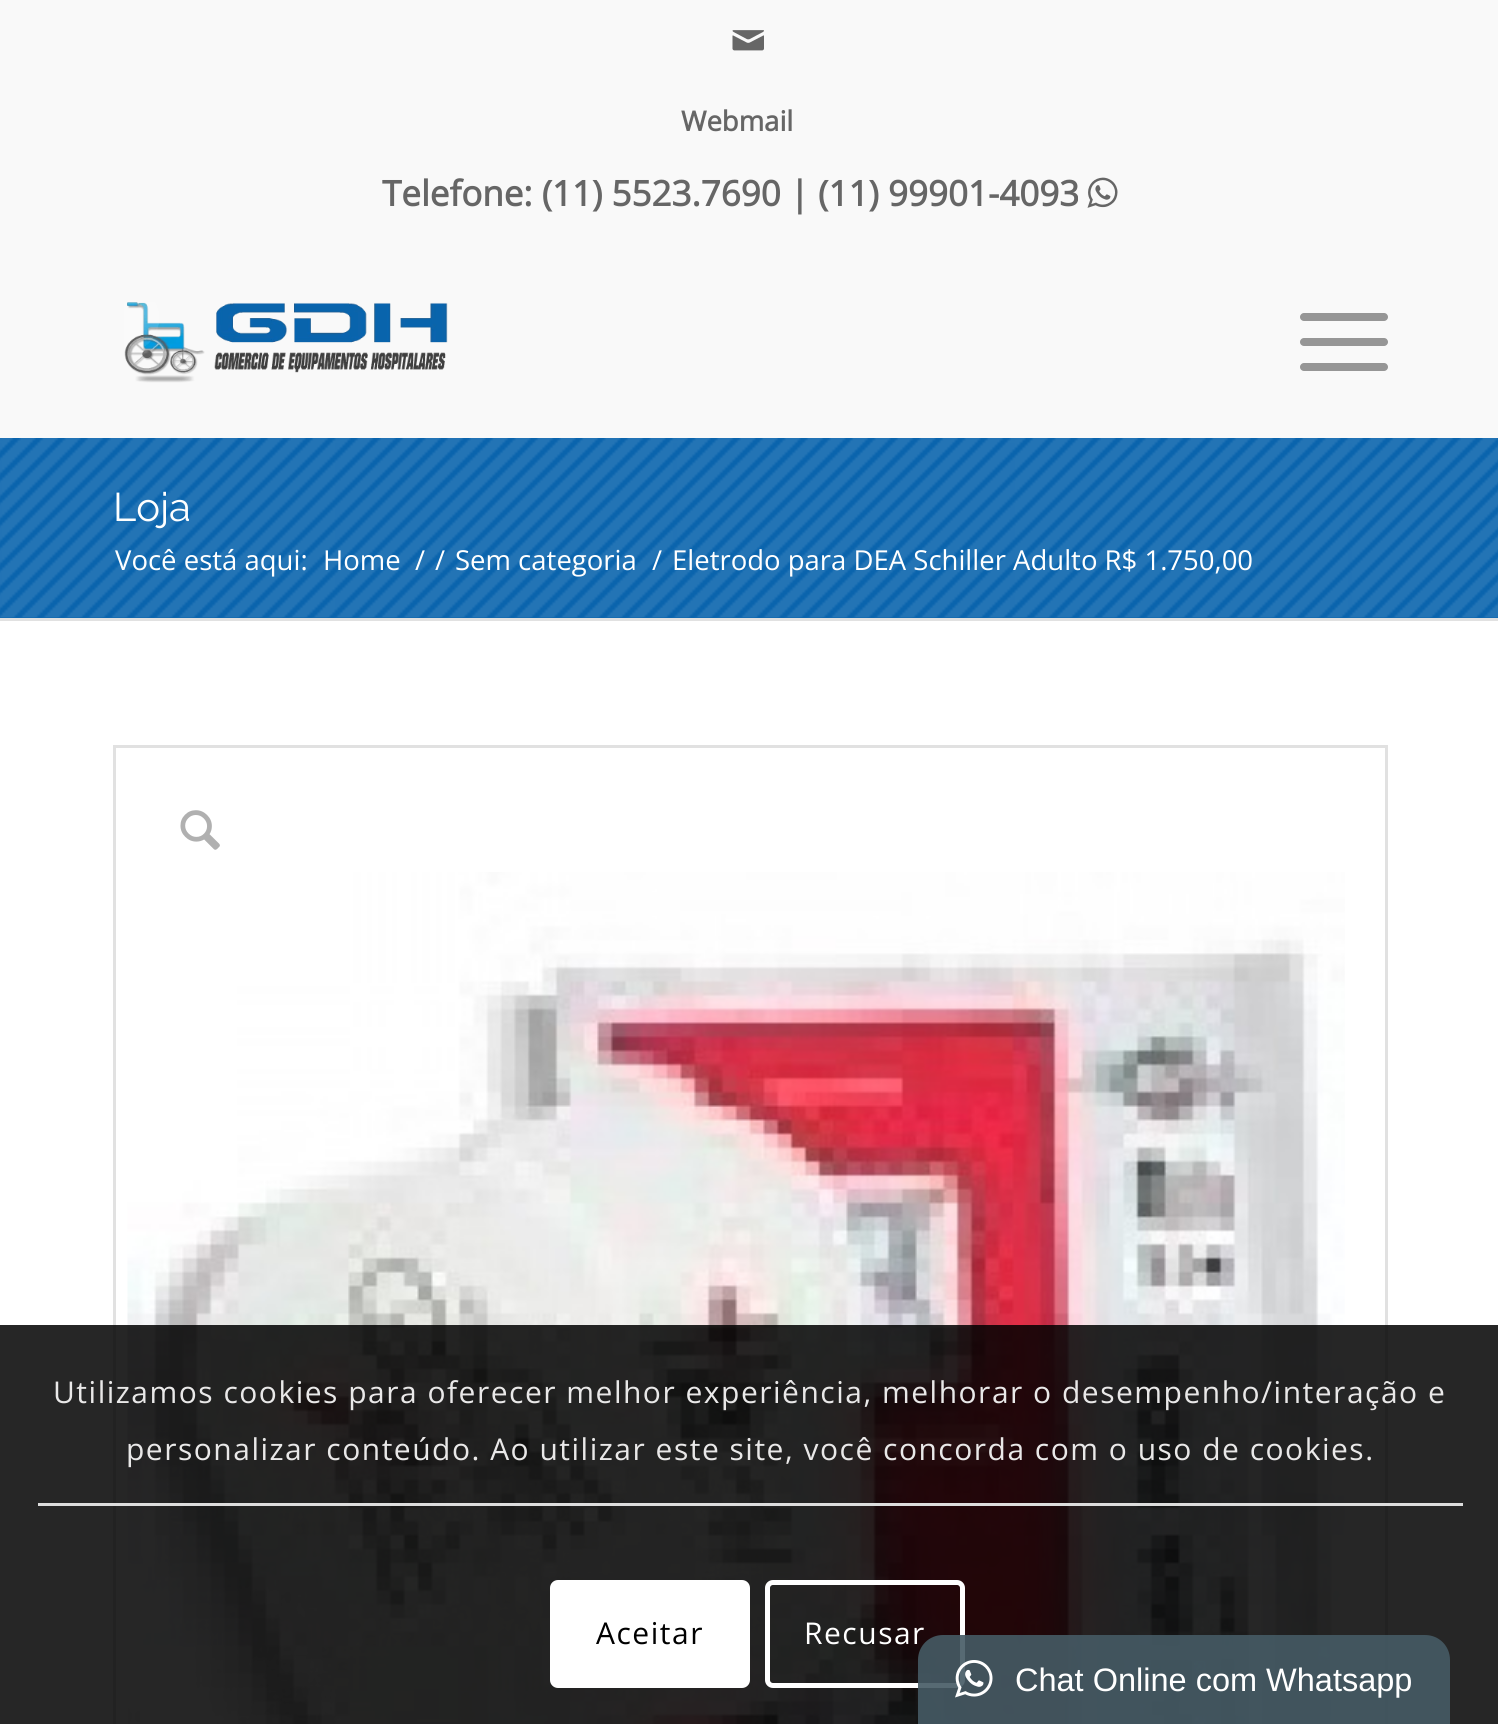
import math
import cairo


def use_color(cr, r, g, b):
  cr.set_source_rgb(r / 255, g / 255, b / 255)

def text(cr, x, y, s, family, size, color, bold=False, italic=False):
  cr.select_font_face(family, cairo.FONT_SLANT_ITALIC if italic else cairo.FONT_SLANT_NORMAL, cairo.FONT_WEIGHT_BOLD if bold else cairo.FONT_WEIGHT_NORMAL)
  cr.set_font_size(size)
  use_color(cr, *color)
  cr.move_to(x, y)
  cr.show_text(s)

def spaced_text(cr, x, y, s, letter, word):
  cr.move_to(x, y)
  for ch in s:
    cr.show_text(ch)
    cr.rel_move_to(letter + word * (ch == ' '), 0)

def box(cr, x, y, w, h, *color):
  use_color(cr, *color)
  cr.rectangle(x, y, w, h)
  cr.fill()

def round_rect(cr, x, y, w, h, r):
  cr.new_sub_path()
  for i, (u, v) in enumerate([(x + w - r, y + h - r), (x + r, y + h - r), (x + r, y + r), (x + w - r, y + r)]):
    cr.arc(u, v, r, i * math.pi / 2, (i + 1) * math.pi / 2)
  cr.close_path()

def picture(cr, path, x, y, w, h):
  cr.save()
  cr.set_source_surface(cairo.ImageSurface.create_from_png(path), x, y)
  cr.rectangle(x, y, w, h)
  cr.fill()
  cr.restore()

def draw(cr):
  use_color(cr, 10, 100, 173)
  cr.paint()
  box(cr, 0, 0, 1498, 438, 249, 249, 249)
  picture(cr, "img_01.png", 732, 30, 32, 21)
  picture(cr, "img_02.png", 1087, 177, 31, 31)
  picture(cr, "img_03.png", 124, 302, 324, 81)
  use_color(cr, 150, 150, 150)
  round_rect(cr, 1300, 338, 88, 8, 4)
  cr.fill()
  round_rect(cr, 1300, 313, 88, 8, 4)
  cr.fill()
  round_rect(cr, 1300, 363, 88, 8, 4)
  cr.fill()
  picture(cr, "img_04.png", 0, 438, 1498, 180)
  box(cr, 0, 621, 1498, 1103, 255, 255, 255)
  box(cr, 0, 618, 1498, 3, 225, 225, 225)
  cr.rectangle(114.5, 746.5, 1272, 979)
  cr.set_line_width(3)
  cr.stroke()
  picture(cr, "img_05.png", 127, 872, 1218, 852)
  picture(cr, "img_06.png", 180, 810, 40, 40)
  cr.set_source_rgba(0, 0, 0, 0.85)
  cr.rectangle(0, 1325, 1498, 399)
  cr.fill()
  box(cr, 38, 1503, 1425, 3, 221, 221, 221)
  use_color(cr, 255, 255, 255)
  round_rect(cr, 550, 1580, 200, 108, 8)
  cr.fill()
  round_rect(cr, 767.5, 1582.5, 195, 103, 5.5)
  cr.set_line_width(5)
  cr.stroke()
  text(cr, 681, 131, "Webmail", "Open Sans", 27.5, (102, 102, 102), bold=True)
  text(cr, 382, 206, "Telefone: (11) 5523.7690 | (11) 99901-4093", "Open Sans", 35, (102, 102, 102), bold=True)
  text(cr, 113, 521, "Loja", "Raleway Thin", 40, (255, 255, 255))
  text(cr, 115, 570, "Você está aqui:", "Open Sans", 27.5, (255, 255, 255))
  text(cr, 323, 570, "Home", "Open Sans", 27.5, (255, 255, 255))
  text(cr, 415, 570, "/", "Open Sans", 27.5, (255, 255, 255))
  text(cr, 435, 570, "/", "Open Sans", 27.5, (255, 255, 255))
  text(cr, 455, 570, "Sem categoria", "Open Sans", 27.5, (255, 255, 255))
  text(cr, 652, 570, "/", "Open Sans", 27.5, (255, 255, 255))
  text(cr, 672, 570, "Eletrodo para DEA Schiller Adulto R$ 1.750,00", "Open Sans", 27.5, (255, 255, 255))
  cr.set_font_size(30)
  use_color(cr, 233, 232, 232)
  spaced_text(cr, 53, 1403, "Utilizamos cookies para oferecer melhor experiência, melhorar o desempenho/interação e", 1.5, 0)
  spaced_text(cr, 126, 1460, "personalizar conteúdo. Ao utilizar este site, você concorda com o uso de cookies.", 1.5, 0)
  use_color(cr, 0, 0, 0)
  spaced_text(cr, 596, 1644, "Aceitar", 1.5, 0)
  use_color(cr, 255, 255, 255)
  spaced_text(cr, 804, 1644, "Recusar", 1.5, 0)
  cr.set_source_rgba(0.271, 0.353, 0.392, 0.9)
  cr.new_path()
  cr.move_to(943, 1635)
  cr.line_to(1425, 1635)
  cr.curve_to(1439, 1635, 1450, 1646, 1450, 1660)
  cr.line_to(1450, 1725)
  cr.line_to(918, 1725)
  cr.line_to(918, 1660)
  cr.curve_to(918, 1646, 929, 1635, 943, 1635)
  cr.close_path()
  cr.fill()
  picture(cr, "img_07.png", 955, 1660, 38, 38)
  text(cr, 1015, 1691, "Chat Online com Whatsapp", "Liberation Sans", 32.5, (255, 255, 255))


surface = cairo.ImageSurface(cairo.FORMAT_RGB24, 1498, 1724)
cr = cairo.Context(surface)
options = cairo.FontOptions()
options.set_hint_metrics(cairo.HINT_METRICS_OFF)
options.set_hint_style(cairo.HINT_STYLE_NONE)
cr.set_font_options(options)
cr.set_miter_limit(4)
draw(cr)
surface.write_to_png("out.png")
